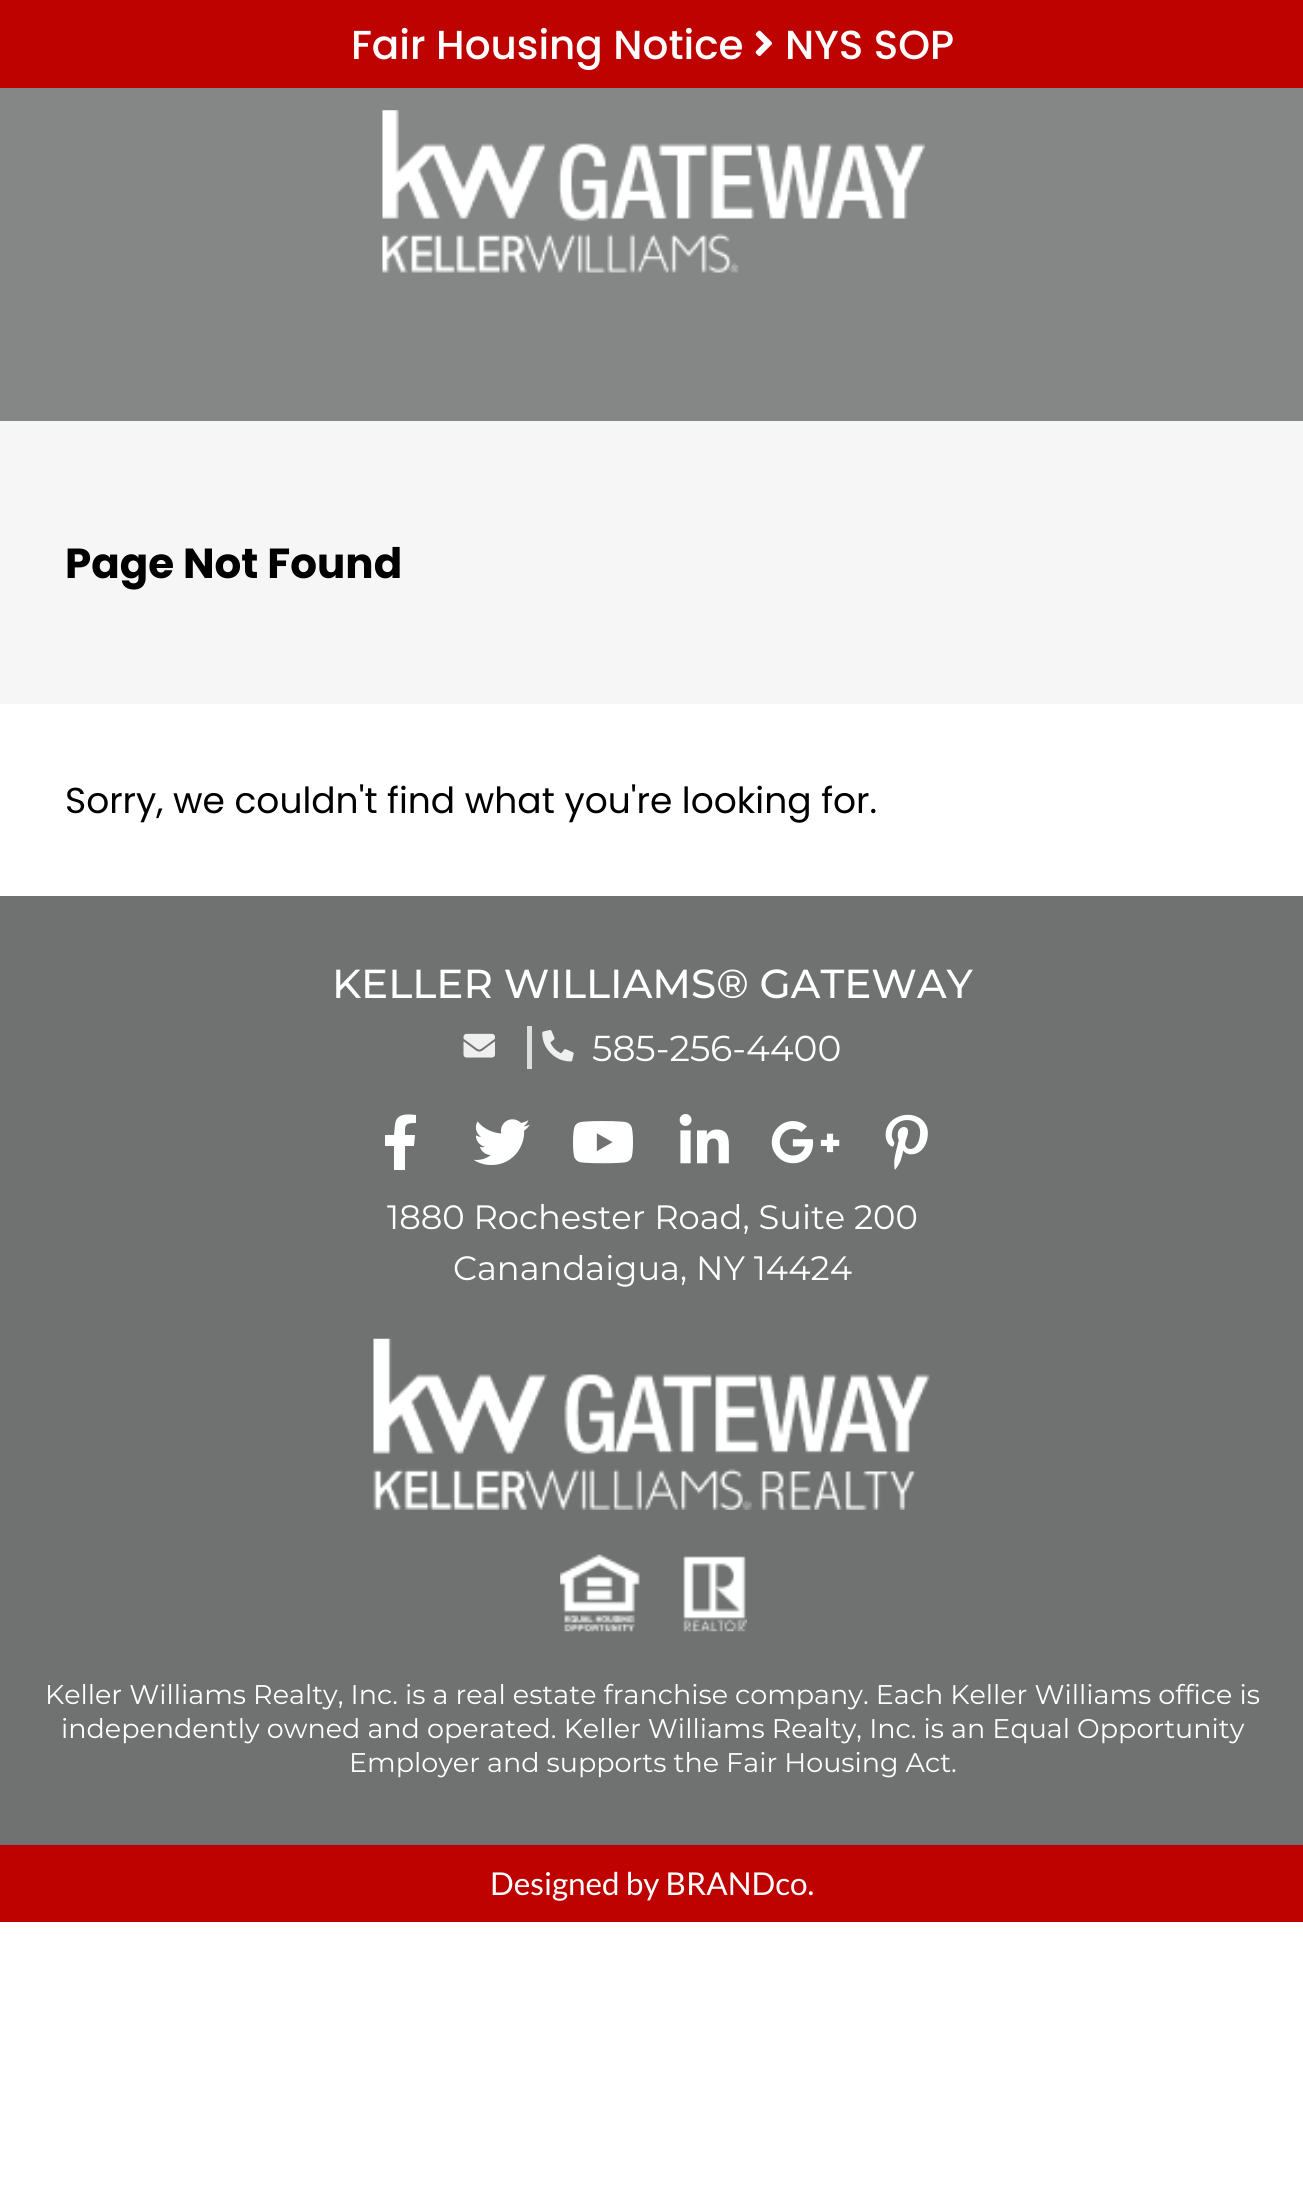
import math
import cairo


def use_color(cr, r, g, b):
  cr.set_source_rgb(r / 255, g / 255, b / 255)

def text(cr, x, y, s, family, size, color, bold=False, italic=False):
  cr.select_font_face(family, cairo.FONT_SLANT_ITALIC if italic else cairo.FONT_SLANT_NORMAL, cairo.FONT_WEIGHT_BOLD if bold else cairo.FONT_WEIGHT_NORMAL)
  cr.set_font_size(size)
  use_color(cr, *color)
  cr.move_to(x, y)
  cr.show_text(s)

def box(cr, x, y, w, h, *color):
  use_color(cr, *color)
  cr.rectangle(x, y, w, h)
  cr.fill()

def picture(cr, path, x, y, w, h):
  cr.save()
  cr.set_source_surface(cairo.ImageSurface.create_from_png(path), x, y)
  cr.rectangle(x, y, w, h)
  cr.fill()
  cr.restore()

def draw(cr):
  use_color(cr, 255, 255, 255)
  cr.paint()
  box(cr, 0, 0, 1303, 88, 190, 2, 0)
  picture(cr, "img_01.png", 755, 30, 17, 26)
  box(cr, 0, 88, 1303, 333, 133, 135, 134)
  picture(cr, "img_02.png", 382, 110, 543, 163)
  box(cr, 0, 421, 1303, 283, 246, 246, 246)
  box(cr, 0, 896, 1303, 949, 111, 114, 113)
  picture(cr, "img_03.png", 463, 1033, 32, 25)
  box(cr, 527, 1026, 5, 43, 221, 221, 221)
  picture(cr, "img_04.png", 542, 1030, 32, 32)
  use_color(cr, 255, 255, 255)
  cr.new_path()
  cr.move_to(414, 1146)
  cr.line_to(405, 1146)
  cr.line_to(405, 1170)
  cr.line_to(394, 1170)
  cr.line_to(394, 1146)
  cr.line_to(385, 1146)
  cr.line_to(385, 1135)
  cr.line_to(394, 1135)
  cr.line_to(395, 1125)
  cr.curve_to(396, 1113, 407, 1114, 416, 1115)
  cr.line_to(416, 1123)
  cr.curve_to(404, 1123, 405, 1125, 405, 1135)
  cr.line_to(415, 1135)
  cr.close_path()
  cr.fill()
  picture(cr, "img_05.png", 473, 1119, 57, 46)
  picture(cr, "img_06.png", 573, 1121, 60, 43)
  picture(cr, "img_07.png", 679, 1114, 50, 50)
  picture(cr, "img_08.png", 771, 1121, 69, 43)
  picture(cr, "img_09.png", 885, 1114, 43, 56)
  picture(cr, "img_10.png", 373, 1338, 557, 172)
  picture(cr, "img_11.png", 560, 1554, 187, 78)
  box(cr, 0, 1845, 1303, 77, 190, 2, 0)
  text(cr, 351, 59, "Fair Housing Notice", "Poppins Medium", 40.5, (255, 255, 255))
  text(cr, 785, 59, "NYS SOP", "Poppins Medium", 40.5, (255, 255, 255))
  text(cr, 65, 578, "Page Not Found", "Poppins", 42, (0, 0, 0), bold=True)
  text(cr, 65, 813, "Sorry, we couldn't find what you're looking for.", "Poppins", 36, (0, 0, 0))
  text(cr, 332, 998, "KELLER WILLIAMS® GATEWAY", "Montserrat Medium", 40.5, (255, 255, 255))
  text(cr, 592, 1061, "585-256-4400", "Montserrat", 36, (255, 255, 255))
  text(cr, 387, 1229, "1880 Rochester Road, Suite 200", "Montserrat", 33.75, (255, 255, 255))
  text(cr, 453, 1280, "Canandaigua, NY 14424", "Montserrat", 33.75, (255, 255, 255))
  text(cr, 45, 1704, "Keller Williams Realty, Inc. is a real estate franchise company. Each Keller Williams office is", "Montserrat", 27, (255, 255, 255))
  text(cr, 61, 1738, "independently owned and operated. Keller Williams Realty, Inc. is an Equal Opportunity", "Montserrat", 27, (255, 255, 255))
  text(cr, 349, 1772, "Employer and supports the Fair Housing Act.", "Montserrat", 27, (255, 255, 255))
  text(cr, 490, 1895, "Designed by BRANDco.", "Lato", 31.5, (255, 255, 255))


surface = cairo.ImageSurface(cairo.FORMAT_RGB24, 1303, 2205)
cr = cairo.Context(surface)
options = cairo.FontOptions()
options.set_hint_metrics(cairo.HINT_METRICS_OFF)
options.set_hint_style(cairo.HINT_STYLE_NONE)
cr.set_font_options(options)
cr.set_miter_limit(4)
draw(cr)
surface.write_to_png("out.png")
